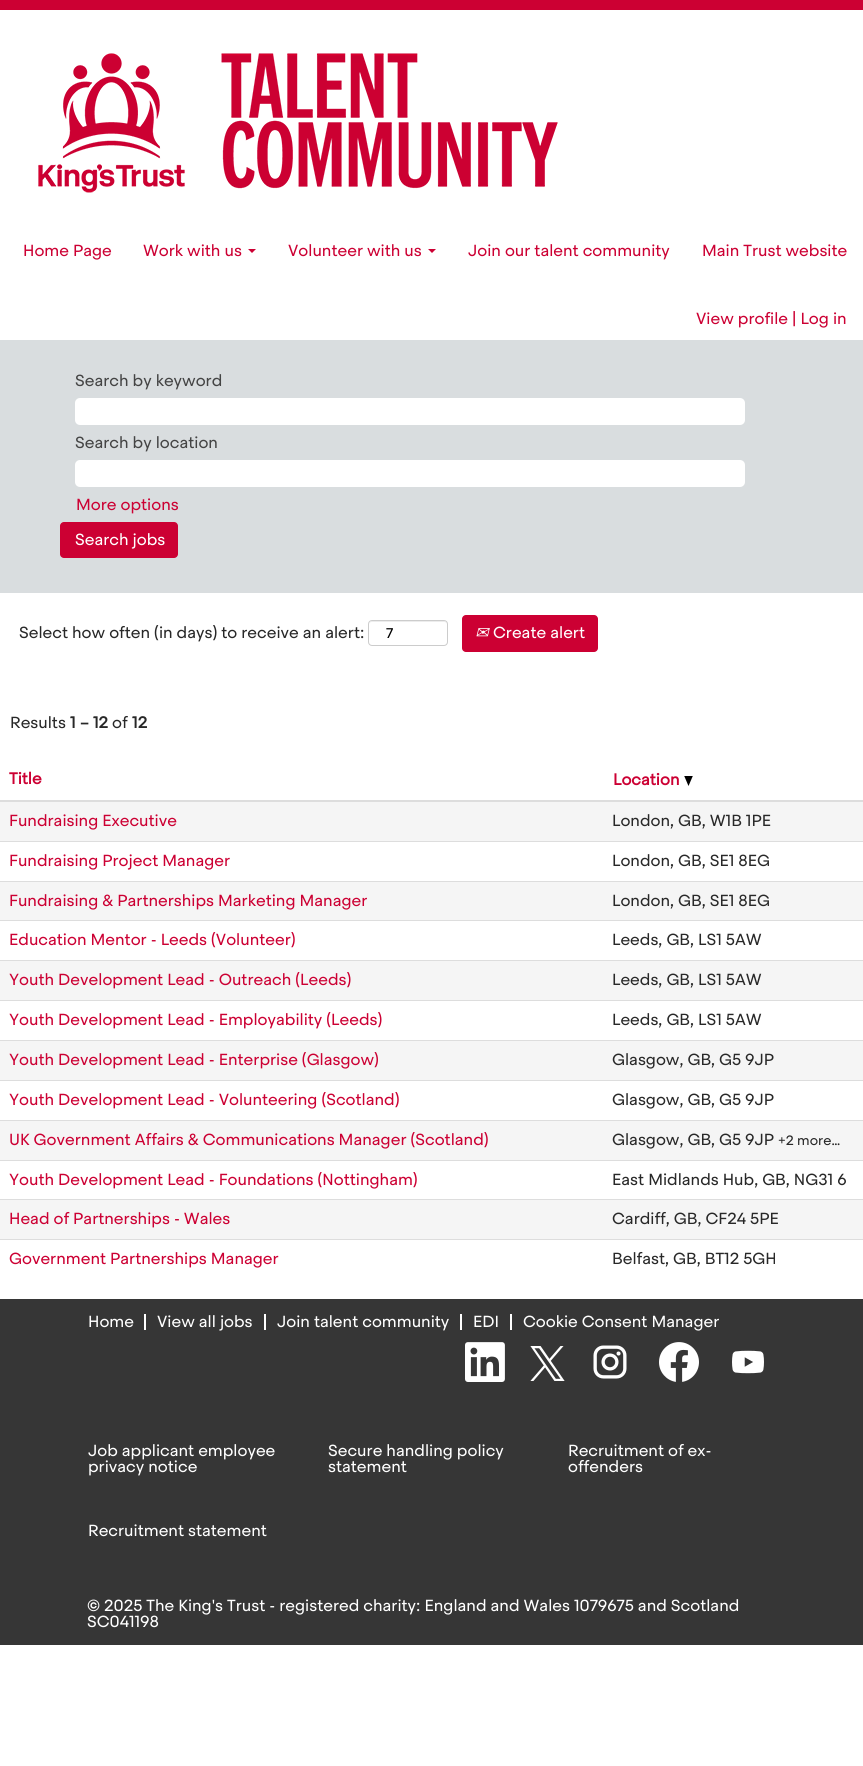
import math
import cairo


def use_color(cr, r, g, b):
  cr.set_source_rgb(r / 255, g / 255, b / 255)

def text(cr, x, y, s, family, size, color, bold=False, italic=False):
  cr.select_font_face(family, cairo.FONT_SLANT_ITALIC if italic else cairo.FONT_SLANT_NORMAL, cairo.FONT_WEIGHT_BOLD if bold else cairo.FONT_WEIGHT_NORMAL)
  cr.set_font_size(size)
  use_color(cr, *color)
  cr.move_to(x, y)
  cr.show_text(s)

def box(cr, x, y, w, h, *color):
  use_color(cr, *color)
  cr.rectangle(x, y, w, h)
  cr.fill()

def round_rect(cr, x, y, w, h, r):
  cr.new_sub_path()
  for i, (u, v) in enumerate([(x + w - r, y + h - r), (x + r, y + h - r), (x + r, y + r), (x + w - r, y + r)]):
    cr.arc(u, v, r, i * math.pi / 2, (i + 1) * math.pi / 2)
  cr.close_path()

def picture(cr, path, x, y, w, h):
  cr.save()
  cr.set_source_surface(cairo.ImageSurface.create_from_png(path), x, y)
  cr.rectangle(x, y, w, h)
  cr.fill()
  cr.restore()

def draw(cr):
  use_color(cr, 255, 255, 255)
  cr.paint()
  box(cr, 0, 0, 863, 10, 204, 0, 51)
  picture(cr, "img_01.png", 38, 53, 520, 140)
  cr.new_path()
  cr.move_to(248, 249)
  cr.line_to(256, 249)
  cr.line_to(252, 253)
  cr.close_path()
  cr.fill()
  cr.new_path()
  cr.move_to(428, 249)
  cr.line_to(436, 249)
  cr.line_to(432, 253)
  cr.close_path()
  cr.fill()
  box(cr, 0, 340, 863, 253, 217, 221, 223)
  use_color(cr, 255, 255, 255)
  round_rect(cr, 75, 398, 670, 27, 5)
  cr.fill()
  round_rect(cr, 75, 460, 670, 27, 5)
  cr.fill()
  use_color(cr, 204, 0, 51)
  round_rect(cr, 60, 522, 118, 36, 4)
  cr.fill()
  use_color(cr, 236, 236, 236)
  cr.new_path()
  cr.move_to(372, 622)
  cr.line_to(444, 622)
  cr.curve_to(446, 622, 447, 623, 447, 625)
  cr.curve_to(447, 618, 436, 621, 432, 621)
  cr.line_to(384, 621)
  cr.curve_to(380, 621, 369, 618, 369, 625)
  cr.curve_to(369, 623, 370, 622, 372, 622)
  cr.close_path()
  cr.fill()
  round_rect(cr, 368.5, 620.5, 79, 25, 3.5)
  use_color(cr, 204, 204, 204)
  cr.set_line_width(1)
  cr.stroke()
  use_color(cr, 204, 0, 51)
  round_rect(cr, 462, 615, 136, 37, 4)
  cr.fill()
  box(cr, 0, 800, 863, 2, 221, 221, 221)
  picture(cr, "img_02.png", 684, 776, 9, 10)
  box(cr, 0, 802, 863, 39, 245, 245, 245)
  box(cr, 0, 841, 863, 1, 221, 221, 221)
  box(cr, 0, 882, 863, 38, 245, 245, 245)
  box(cr, 0, 881, 863, 1, 221, 221, 221)
  box(cr, 0, 920, 863, 1, 221, 221, 221)
  box(cr, 0, 961, 863, 39, 245, 245, 245)
  box(cr, 0, 960, 863, 1, 221, 221, 221)
  box(cr, 0, 1000, 863, 1, 221, 221, 221)
  box(cr, 0, 1041, 863, 39, 245, 245, 245)
  box(cr, 0, 1040, 863, 1, 221, 221, 221)
  box(cr, 0, 1080, 863, 1, 221, 221, 221)
  box(cr, 0, 1121, 863, 39, 245, 245, 245)
  box(cr, 0, 1120, 863, 1, 221, 221, 221)
  box(cr, 0, 1160, 863, 1, 221, 221, 221)
  box(cr, 0, 1200, 863, 39, 245, 245, 245)
  box(cr, 0, 1199, 863, 1, 221, 221, 221)
  box(cr, 0, 1239, 863, 1, 221, 221, 221)
  box(cr, 0, 1299, 863, 346, 54, 54, 54)
  box(cr, 144, 1314, 2, 16, 255, 255, 255)
  box(cr, 264, 1314, 2, 16, 255, 255, 255)
  box(cr, 460, 1314, 2, 16, 255, 255, 255)
  box(cr, 510, 1314, 2, 16, 255, 255, 255)
  picture(cr, "img_03.png", 465, 1342, 40, 40)
  picture(cr, "img_04.png", 530, 1346, 35, 35)
  picture(cr, "img_05.png", 593, 1345, 34, 34)
  picture(cr, "img_06.png", 659, 1342, 40, 40)
  picture(cr, "img_07.png", 732, 1350, 32, 24)
  text(cr, 23, 256, "Home Page", "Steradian", 16, (204, 0, 51))
  text(cr, 143, 256, "Work with us", "Steradian", 16, (204, 0, 51))
  text(cr, 288, 256, "Volunteer with us", "Steradian", 16, (204, 0, 51))
  text(cr, 468, 256, "Join our talent community", "Steradian", 16, (204, 0, 51))
  text(cr, 702, 256, "Main Trust website", "Steradian", 16, (204, 0, 51))
  text(cr, 696, 324, "View profile | Log in", "Steradian", 16, (204, 0, 51))
  text(cr, 75, 386, "Search by keyword", "Steradian", 16, (68, 68, 68))
  text(cr, 75, 448, "Search by location", "Steradian", 16, (68, 68, 68))
  text(cr, 76, 510, "More options", "Steradian", 16, (204, 0, 51))
  text(cr, 75, 545, "Search jobs", "Steradian", 16, (255, 255, 255))
  text(cr, 19, 638, "Select how often (in days) to receive an alert:", "Steradian", 16, (40, 40, 40))
  text(cr, 386, 638, "7", "Steradian", 14, (0, 0, 0))
  text(cr, 475, 638, "✉", "DejaVu Sans", 16, (255, 255, 255), italic=True)
  text(cr, 493, 638, "Create alert", "Steradian", 16, (255, 255, 255))
  text(cr, 10, 728, "Results", "Steradian", 16, (40, 40, 40))
  text(cr, 70, 728, "1 – 12", "Steradian", 16, (40, 40, 40), bold=True)
  text(cr, 112, 728, "of", "Steradian", 16, (40, 40, 40))
  text(cr, 132, 728, "12", "Steradian", 16, (40, 40, 40), bold=True)
  text(cr, 9, 784, "Title", "Steradian", 16, (204, 0, 51), bold=True)
  text(cr, 613, 785, "Location", "Steradian", 16, (204, 0, 51), bold=True)
  text(cr, 9, 826, "Fundraising Executive", "Steradian", 16, (204, 0, 51))
  text(cr, 612, 826, "London, GB, W1B 1PE", "Steradian", 16, (40, 40, 40))
  text(cr, 9, 866, "Fundraising Project Manager", "Steradian", 16, (204, 0, 51))
  text(cr, 612, 866, "London, GB, SE1 8EG", "Steradian", 16, (40, 40, 40))
  text(cr, 9, 906, "Fundraising & Partnerships Marketing Manager", "Steradian", 16, (204, 0, 51))
  text(cr, 612, 906, "London, GB, SE1 8EG", "Steradian", 16, (40, 40, 40))
  text(cr, 9, 945, "Education Mentor - Leeds (Volunteer)", "Steradian", 16, (204, 0, 51))
  text(cr, 612, 945, "Leeds, GB, LS1 5AW", "Steradian", 16, (40, 40, 40))
  text(cr, 9, 985, "Youth Development Lead - Outreach (Leeds)", "Steradian", 16, (204, 0, 51))
  text(cr, 612, 985, "Leeds, GB, LS1 5AW", "Steradian", 16, (40, 40, 40))
  text(cr, 9, 1025, "Youth Development Lead - Employability (Leeds)", "Steradian", 16, (204, 0, 51))
  text(cr, 612, 1025, "Leeds, GB, LS1 5AW", "Steradian", 16, (40, 40, 40))
  text(cr, 9, 1065, "Youth Development Lead - Enterprise (Glasgow)", "Steradian", 16, (204, 0, 51))
  text(cr, 612, 1065, "Glasgow, GB, G5 9JP", "Steradian", 16, (40, 40, 40))
  text(cr, 9, 1105, "Youth Development Lead - Volunteering (Scotland)", "Steradian", 16, (204, 0, 51))
  text(cr, 612, 1105, "Glasgow, GB, G5 9JP", "Steradian", 16, (40, 40, 40))
  text(cr, 9, 1145, "UK Government Affairs & Communications Manager (Scotland)", "Steradian", 16, (204, 0, 51))
  text(cr, 612, 1145, "Glasgow, GB, G5 9JP", "Steradian", 16, (40, 40, 40))
  text(cr, 778, 1145, "+2 more…", "Steradian", 13.5, (40, 40, 40))
  text(cr, 9, 1185, "Youth Development Lead - Foundations (Nottingham)", "Steradian", 16, (204, 0, 51))
  text(cr, 612, 1185, "East Midlands Hub, GB, NG31 6", "Steradian", 16, (40, 40, 40))
  text(cr, 9, 1224, "Head of Partnerships - Wales", "Steradian", 16, (204, 0, 51))
  text(cr, 612, 1224, "Cardiff, GB, CF24 5PE", "Steradian", 16, (40, 40, 40))
  text(cr, 9, 1264, "Government Partnerships Manager", "Steradian", 16, (204, 0, 51))
  text(cr, 612, 1264, "Belfast, GB, BT12 5GH", "Steradian", 16, (40, 40, 40))
  text(cr, 88, 1327, "Home", "Steradian", 16, (255, 255, 255))
  text(cr, 157, 1327, "View all jobs", "Steradian", 16, (255, 255, 255))
  text(cr, 277, 1327, "Join talent community", "Steradian", 16, (255, 255, 255))
  text(cr, 473, 1327, "EDI", "Steradian", 16, (255, 255, 255))
  text(cr, 523, 1327, "Cookie Consent Manager", "Steradian", 16, (255, 255, 255))
  text(cr, 88, 1456, "Job applicant employee", "Steradian", 16, (255, 255, 255))
  text(cr, 88, 1472, "privacy notice", "Steradian", 16, (255, 255, 255))
  text(cr, 328, 1456, "Secure handling policy", "Steradian", 16, (255, 255, 255))
  text(cr, 328, 1472, "statement", "Steradian", 16, (255, 255, 255))
  text(cr, 568, 1456, "Recruitment of ex-", "Steradian", 16, (255, 255, 255))
  text(cr, 568, 1472, "offenders", "Steradian", 16, (255, 255, 255))
  text(cr, 88, 1536, "Recruitment statement", "Steradian", 16, (255, 255, 255))
  text(cr, 87, 1611, "© 2025 The King's Trust - registered charity: England and Wales 1079675 and Scotland", "Steradian", 16, (255, 255, 255))
  text(cr, 87, 1627, "SC041198", "Steradian", 16, (255, 255, 255))


surface = cairo.ImageSurface(cairo.FORMAT_RGB24, 863, 1766)
cr = cairo.Context(surface)
options = cairo.FontOptions()
options.set_hint_metrics(cairo.HINT_METRICS_OFF)
options.set_hint_style(cairo.HINT_STYLE_NONE)
cr.set_font_options(options)
cr.set_miter_limit(4)
draw(cr)
surface.write_to_png("out.png")
